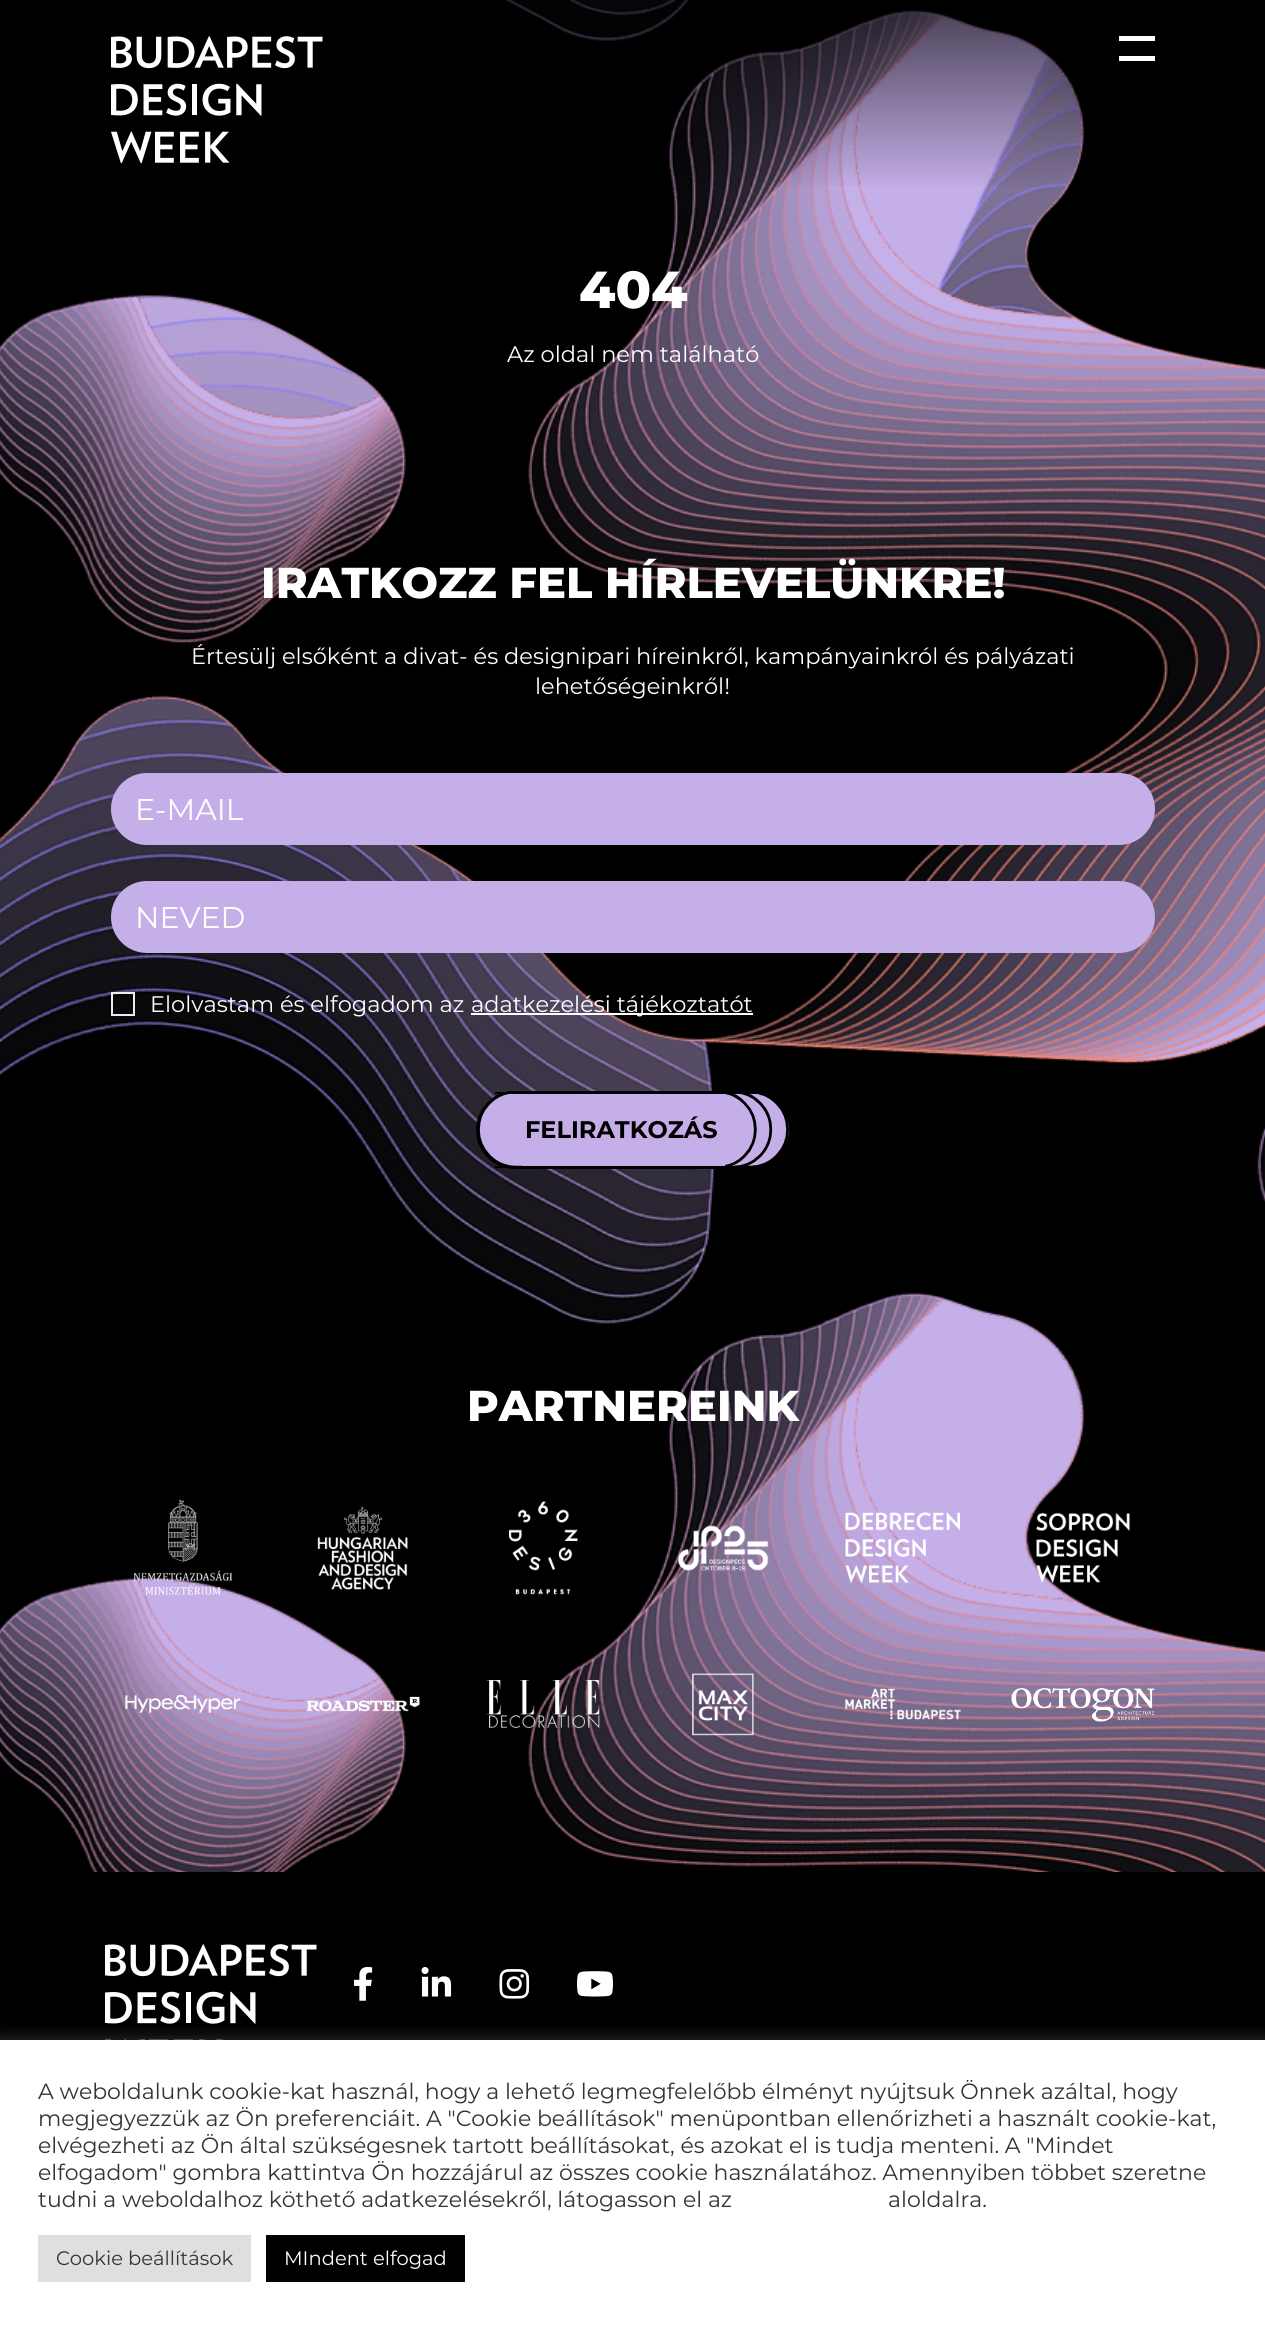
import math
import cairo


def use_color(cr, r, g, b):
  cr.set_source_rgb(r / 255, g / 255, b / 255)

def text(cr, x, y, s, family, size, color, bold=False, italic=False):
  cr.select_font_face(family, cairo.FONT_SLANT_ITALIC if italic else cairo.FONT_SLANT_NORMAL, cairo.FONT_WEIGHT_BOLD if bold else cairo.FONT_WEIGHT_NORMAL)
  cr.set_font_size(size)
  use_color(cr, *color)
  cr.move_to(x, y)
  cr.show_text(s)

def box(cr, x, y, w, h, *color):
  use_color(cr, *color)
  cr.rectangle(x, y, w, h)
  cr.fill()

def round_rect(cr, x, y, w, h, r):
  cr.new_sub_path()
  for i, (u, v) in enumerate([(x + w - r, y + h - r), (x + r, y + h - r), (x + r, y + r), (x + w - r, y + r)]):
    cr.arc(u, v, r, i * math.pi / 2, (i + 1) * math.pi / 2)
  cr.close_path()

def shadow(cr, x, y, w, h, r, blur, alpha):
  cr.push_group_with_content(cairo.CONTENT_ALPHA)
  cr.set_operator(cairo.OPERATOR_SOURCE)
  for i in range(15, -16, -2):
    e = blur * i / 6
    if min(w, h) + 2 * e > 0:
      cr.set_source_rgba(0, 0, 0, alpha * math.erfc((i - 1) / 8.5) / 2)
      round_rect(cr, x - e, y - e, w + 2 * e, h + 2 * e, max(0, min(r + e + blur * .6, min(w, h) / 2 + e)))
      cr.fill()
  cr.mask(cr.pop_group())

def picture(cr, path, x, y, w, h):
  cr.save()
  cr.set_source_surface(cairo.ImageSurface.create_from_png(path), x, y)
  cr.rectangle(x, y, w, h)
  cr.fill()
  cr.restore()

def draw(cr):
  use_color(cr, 197, 175, 232)
  cr.paint()
  picture(cr, "img_01.png", 0, 0, 1265, 1872)
  gradient = cairo.LinearGradient(633, 0, 633, 192)
  gradient.add_color_stop_rgba(0, 0, 0, 0, 0.65)
  gradient.add_color_stop_rgba(1, 0, 0, 0, 0)
  cr.set_source(gradient)
  cr.rectangle(506, 0, 578, 186)
  cr.fill()
  picture(cr, "img_02.png", 111, 36, 212, 127)
  box(cr, 1119, 36, 36, 5, 255, 255, 255)
  box(cr, 1119, 56, 36, 5, 255, 255, 255)
  use_color(cr, 197, 175, 232)
  round_rect(cr, 111, 773, 1044, 72, 36)
  cr.fill()
  round_rect(cr, 111, 881, 1044, 72, 36)
  cr.fill()
  cr.rectangle(112, 993, 22, 22)
  use_color(cr, 237, 237, 237)
  cr.stroke()
  box(cr, 471, 1013, 282, 2, 255, 255, 255)
  use_color(cr, 197, 175, 232)
  cr.new_path()
  cr.move_to(514, 1094)
  cr.line_to(752, 1094)
  cr.curve_to(772, 1094, 789, 1110, 789, 1130)
  cr.curve_to(789, 1149, 772, 1166, 752, 1166)
  cr.line_to(514, 1166)
  cr.curve_to(494, 1166, 477, 1149, 477, 1130)
  cr.curve_to(477, 1110, 494, 1094, 514, 1094)
  cr.close_path()
  cr.fill()
  picture(cr, "img_03.png", 477, 1091, 312, 75)
  round_rect(cr, 477, 1092, 313, 76, 38)
  use_color(cr, 0, 0, 0)
  cr.stroke()
  box(cr, 495, 1092, 262, 2, 0, 0, 0)
  box(cr, 495, 1166, 220, 2, 0, 0, 0)
  picture(cr, "img_04.png", 133, 1499, 100, 96)
  picture(cr, "img_05.png", 317, 1506, 91, 84)
  picture(cr, "img_06.png", 509, 1501, 69, 94)
  picture(cr, "img_07.png", 677, 1525, 92, 46)
  picture(cr, "img_08.png", 845, 1512, 116, 72)
  picture(cr, "img_09.png", 1036, 1512, 94, 71)
  picture(cr, "img_10.png", 125, 1694, 116, 19)
  picture(cr, "img_11.png", 306, 1696, 114, 16)
  picture(cr, "img_12.png", 486, 1680, 114, 48)
  picture(cr, "img_13.png", 692, 1673, 62, 63)
  picture(cr, "img_14.png", 845, 1688, 116, 32)
  picture(cr, "img_15.png", 1011, 1687, 144, 35)
  box(cr, 0, 1872, 1265, 168, 0, 0, 0)
  picture(cr, "img_16.png", 105, 1944, 212, 96)
  picture(cr, "img_17.png", 354, 1967, 19, 34)
  picture(cr, "img_18.png", 421, 1967, 31, 30)
  picture(cr, "img_19.png", 499, 1969, 31, 30)
  picture(cr, "img_20.png", 577, 1971, 36, 26)
  use_color(cr, 172, 171, 171)
  shadow(cr, 0, 2039, 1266, 286, 0, 7.5, 0.3)
  box(cr, 0, 2040, 1265, 286, 255, 255, 255)
  box(cr, 38, 2235, 213, 47, 222, 223, 224)
  box(cr, 266, 2235, 199, 47, 0, 0, 0)
  text(cr, 579, 308, "404", "Montserrat ExtraBold", 52, (255, 255, 255))
  text(cr, 507, 362, "Az oldal nem található", "Montserrat", 22.5, (255, 255, 255))
  text(cr, 261, 598, "IRATKOZZ FEL HÍRLEVELÜNKRE!", "Montserrat ExtraBold", 43.2, (255, 255, 255))
  text(cr, 191, 664, "Értesülj elsőként a divat- és designipari híreinkről, kampányainkról és pályázati", "Montserrat", 22.5, (255, 255, 255))
  text(cr, 535, 694, "lehetőségeinkről!", "Montserrat", 22.5, (255, 255, 255))
  text(cr, 135, 820, "E-MAIL", "Montserrat", 30, (255, 255, 255))
  text(cr, 135, 928, "NEVED", "Montserrat", 30, (255, 255, 255))
  text(cr, 150, 1012, "Elolvastam és elfogadom az", "Montserrat", 22.5, (255, 255, 255))
  text(cr, 471, 1012, "adatkezelési tájékoztatót", "Montserrat", 22.5, (255, 255, 255))
  text(cr, 525, 1138, "FELIRATKOZÁS", "Montserrat", 24, (0, 0, 0), bold=True)
  text(cr, 467, 1421, "PARTNEREINK", "Montserrat ExtraBold", 43.2, (255, 255, 255))
  text(cr, 38, 2099, "A weboldalunk cookie-kat használ, hogy a lehető legmegfelelőbb élményt nyújtsuk Önnek azáltal, hogy", "Montserrat", 22, (51, 51, 51))
  text(cr, 38, 2126, "megjegyezzük az Ön preferenciáit. A \"Cookie beállítások\" menüpontban ellenőrizheti a használt cookie-kat,", "Montserrat", 22, (51, 51, 51))
  text(cr, 38, 2153, "elvégezheti az Ön által szükségesnek tartott beállításokat, és azokat el is tudja menteni. A \"Mindet", "Montserrat", 22, (51, 51, 51))
  text(cr, 38, 2180, "elfogadom\" gombra kattintva Ön hozzájárul az összes cookie használatához. Amennyiben többet szeretne", "Montserrat", 22, (51, 51, 51))
  text(cr, 38, 2207, "tudni a weboldalhoz köthető adatkezelésekről, látogasson el az", "Montserrat", 22, (51, 51, 51))
  text(cr, 888, 2207, "aloldalra.", "Montserrat", 22, (51, 51, 51))
  text(cr, 56, 2265, "Cookie beállítások", "Montserrat", 19.5, (51, 51, 51))
  text(cr, 284, 2265, "MIndent elfogad", "Montserrat", 19.5, (255, 255, 255))


surface = cairo.ImageSurface(cairo.FORMAT_RGB24, 1265, 2326)
cr = cairo.Context(surface)
options = cairo.FontOptions()
options.set_hint_metrics(cairo.HINT_METRICS_OFF)
options.set_hint_style(cairo.HINT_STYLE_NONE)
cr.set_font_options(options)
cr.set_miter_limit(4)
draw(cr)
surface.write_to_png("out.png")
